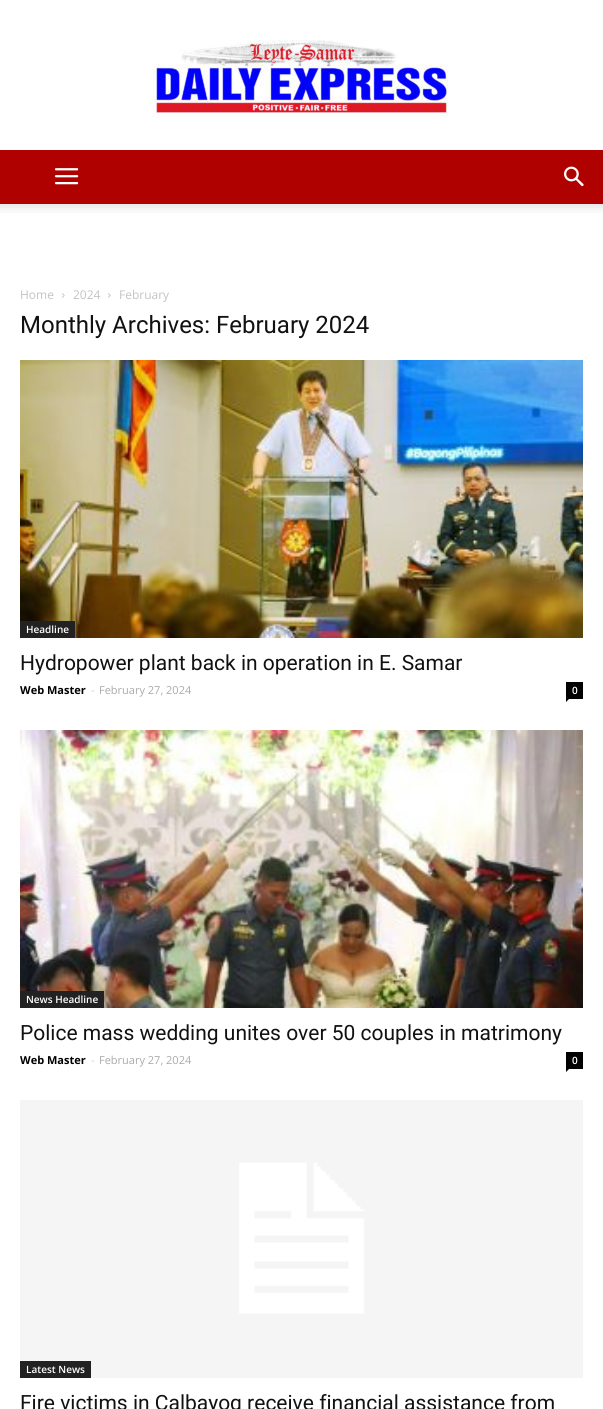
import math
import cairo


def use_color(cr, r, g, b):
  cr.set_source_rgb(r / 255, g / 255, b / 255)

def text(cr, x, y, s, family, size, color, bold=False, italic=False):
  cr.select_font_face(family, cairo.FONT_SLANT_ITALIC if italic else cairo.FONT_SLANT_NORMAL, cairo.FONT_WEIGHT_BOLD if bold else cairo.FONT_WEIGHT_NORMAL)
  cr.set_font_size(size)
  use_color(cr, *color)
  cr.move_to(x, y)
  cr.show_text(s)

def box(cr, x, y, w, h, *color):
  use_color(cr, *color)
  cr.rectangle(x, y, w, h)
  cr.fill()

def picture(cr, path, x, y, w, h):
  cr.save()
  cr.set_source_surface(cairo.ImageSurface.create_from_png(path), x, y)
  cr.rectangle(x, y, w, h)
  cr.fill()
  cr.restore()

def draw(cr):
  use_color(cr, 255, 255, 255)
  cr.paint()
  picture(cr, "img_01.png", 152, 40, 296, 80)
  box(cr, 0, 150, 603, 54, 176, 1, 1)
  picture(cr, "img_02.png", 55, 168, 24, 17)
  picture(cr, "img_03.png", 564, 166, 20, 21)
  picture(cr, "img_04.png", 0, 204, 603, 9)
  picture(cr, "img_05.png", 62, 293, 3, 5)
  picture(cr, "img_05.png", 108, 293, 3, 5)
  picture(cr, "img_06.png", 20, 360, 563, 278)
  box(cr, 20, 621, 55, 17, 34, 34, 34)
  box(cr, 566, 682, 17, 17, 0, 0, 0)
  cr.new_path()
  cr.move_to(566, 699)
  cr.line_to(569, 699)
  cr.line_to(566, 702)
  cr.close_path()
  cr.fill()
  picture(cr, "img_07.png", 20, 730, 563, 278)
  box(cr, 20, 991, 84, 17, 34, 34, 34)
  box(cr, 566, 1052, 17, 17, 0, 0, 0)
  cr.new_path()
  cr.move_to(566, 1069)
  cr.line_to(569, 1069)
  cr.line_to(566, 1072)
  cr.close_path()
  cr.fill()
  picture(cr, "img_08.png", 20, 1100, 563, 278)
  box(cr, 20, 1361, 71, 17, 34, 34, 34)
  text(cr, 20, 299, "Home", "Open Sans", 12, (195, 195, 195))
  text(cr, 73, 299, "2024", "Open Sans", 12, (195, 195, 195))
  text(cr, 119, 299, "February", "Open Sans", 12, (195, 195, 195))
  text(cr, 20, 333, "Monthly Archives: February 2024", "Roboto", 24, (17, 17, 17))
  text(cr, 26, 633, "Headline", "Open Sans SemiBold", 10, (255, 255, 255))
  text(cr, 20, 670, "Hydropower plant back in operation in E. Samar", "Roboto", 21, (17, 17, 17))
  text(cr, 20, 694, "Web Master", "Open Sans", 11, (0, 0, 0), bold=True)
  text(cr, 91, 694, "-", "Open Sans", 11, (204, 204, 204))
  text(cr, 99, 694, "February 27, 2024", "Open Sans", 11, (170, 170, 170))
  text(cr, 572, 694, "0", "Open Sans SemiBold", 10, (255, 255, 255))
  text(cr, 26, 1003, "News Headline", "Open Sans SemiBold", 10, (255, 255, 255))
  text(cr, 20, 1040, "Police mass wedding unites over 50 couples in matrimony", "Roboto", 21, (17, 17, 17))
  text(cr, 20, 1064, "Web Master", "Open Sans", 11, (0, 0, 0), bold=True)
  text(cr, 91, 1064, "-", "Open Sans", 11, (204, 204, 204))
  text(cr, 99, 1064, "February 27, 2024", "Open Sans", 11, (170, 170, 170))
  text(cr, 572, 1064, "0", "Open Sans SemiBold", 10, (255, 255, 255))
  text(cr, 26, 1373, "Latest News", "Open Sans SemiBold", 10, (255, 255, 255))
  text(cr, 20, 1410, "Fire victims in Calbayog receive financial assistance from", "Roboto", 21, (17, 17, 17))


surface = cairo.ImageSurface(cairo.FORMAT_RGB24, 603, 1409)
cr = cairo.Context(surface)
options = cairo.FontOptions()
options.set_hint_metrics(cairo.HINT_METRICS_OFF)
options.set_hint_style(cairo.HINT_STYLE_NONE)
cr.set_font_options(options)
cr.set_miter_limit(4)
draw(cr)
surface.write_to_png("out.png")
